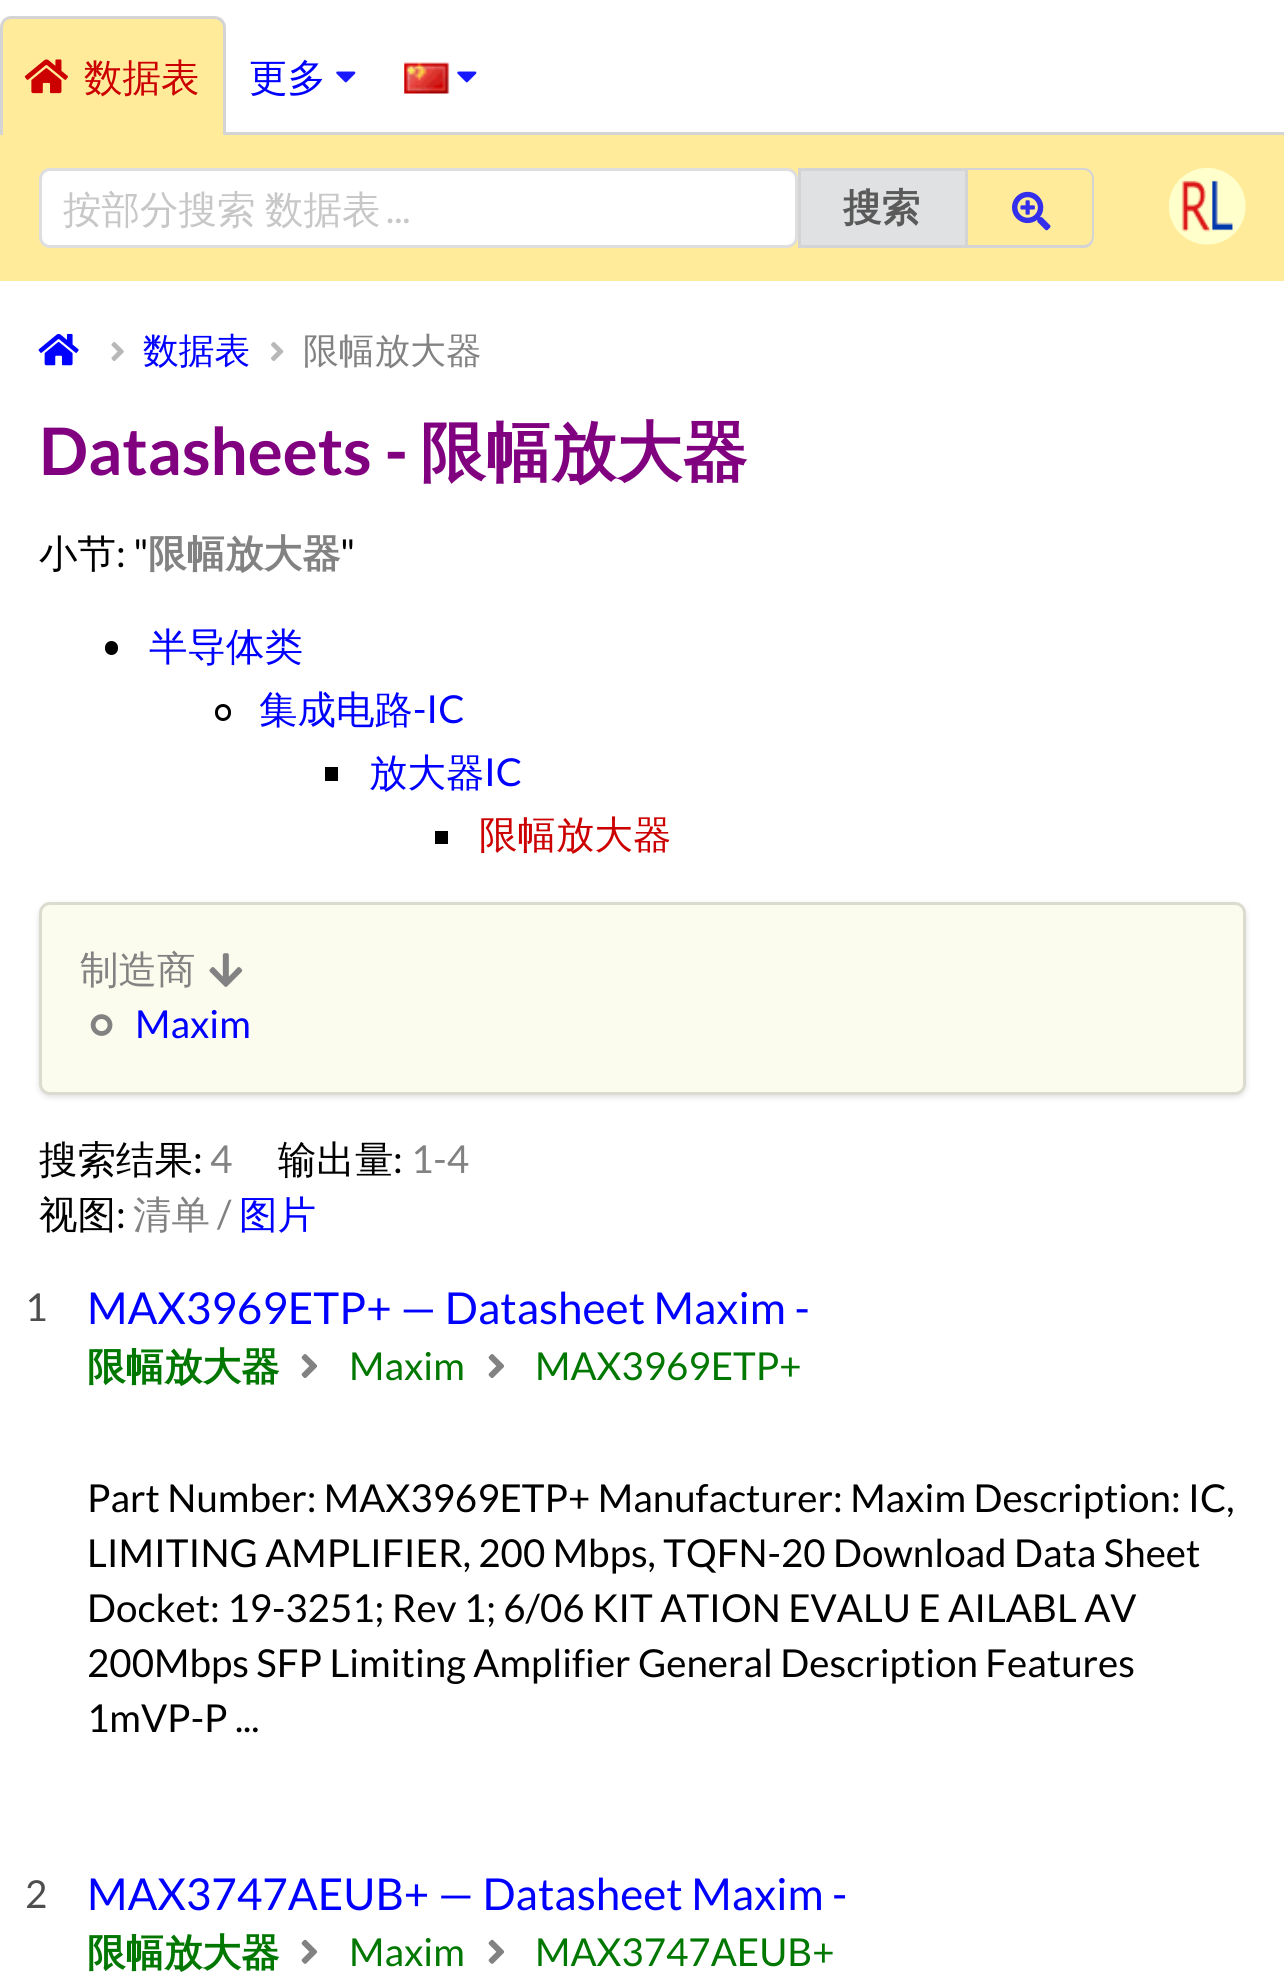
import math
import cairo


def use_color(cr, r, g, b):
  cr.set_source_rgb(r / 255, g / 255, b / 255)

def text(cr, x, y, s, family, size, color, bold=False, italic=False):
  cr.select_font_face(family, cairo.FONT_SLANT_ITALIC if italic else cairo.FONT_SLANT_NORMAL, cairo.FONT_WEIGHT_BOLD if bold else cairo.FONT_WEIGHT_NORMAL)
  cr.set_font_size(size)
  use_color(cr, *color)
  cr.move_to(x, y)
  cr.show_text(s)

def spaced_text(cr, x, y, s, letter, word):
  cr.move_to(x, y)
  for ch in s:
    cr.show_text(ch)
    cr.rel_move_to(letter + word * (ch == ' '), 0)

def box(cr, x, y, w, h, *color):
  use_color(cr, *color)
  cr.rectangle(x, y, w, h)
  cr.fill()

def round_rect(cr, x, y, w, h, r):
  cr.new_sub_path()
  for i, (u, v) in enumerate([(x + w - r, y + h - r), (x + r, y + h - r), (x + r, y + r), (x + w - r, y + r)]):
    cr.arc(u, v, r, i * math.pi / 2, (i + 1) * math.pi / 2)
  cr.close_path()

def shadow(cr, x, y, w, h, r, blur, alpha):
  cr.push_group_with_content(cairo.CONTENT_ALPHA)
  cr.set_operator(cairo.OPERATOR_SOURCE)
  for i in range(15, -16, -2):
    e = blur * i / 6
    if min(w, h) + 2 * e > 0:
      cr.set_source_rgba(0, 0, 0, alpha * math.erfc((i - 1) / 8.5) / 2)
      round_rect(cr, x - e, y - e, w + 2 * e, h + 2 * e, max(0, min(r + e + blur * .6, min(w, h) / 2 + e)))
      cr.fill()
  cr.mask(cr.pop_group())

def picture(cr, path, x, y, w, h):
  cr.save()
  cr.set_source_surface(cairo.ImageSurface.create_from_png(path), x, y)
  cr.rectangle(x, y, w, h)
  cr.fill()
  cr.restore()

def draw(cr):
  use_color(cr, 255, 255, 255)
  cr.paint()
  box(cr, 0, 135, 1284, 146, 255, 235, 153)
  box(cr, 226, 132, 1058, 3, 212, 212, 213)
  use_color(cr, 255, 235, 153)
  cr.new_path()
  cr.move_to(11, 17)
  cr.line_to(215, 17)
  cr.curve_to(221, 17, 226, 22, 226, 28)
  cr.line_to(226, 135)
  cr.line_to(0, 135)
  cr.line_to(0, 28)
  cr.curve_to(0, 22, 5, 17, 11, 17)
  cr.close_path()
  cr.fill()
  use_color(cr, 212, 212, 213)
  cr.set_fill_rule(cairo.FILL_RULE_EVEN_ODD)
  cr.new_path()
  cr.move_to(11, 16)
  cr.line_to(214, 16)
  cr.curve_to(221, 16, 226, 21, 226, 28)
  cr.line_to(226, 135)
  cr.line_to(0, 135)
  cr.line_to(0, 28)
  cr.curve_to(0, 21, 5, 16, 11, 16)
  cr.close_path()
  cr.move_to(11, 19)
  cr.line_to(214, 19)
  cr.curve_to(219, 19, 223, 23, 223, 28)
  cr.line_to(223, 135)
  cr.line_to(3, 135)
  cr.line_to(3, 28)
  cr.curve_to(3, 23, 6, 19, 11, 19)
  cr.close_path()
  cr.fill()
  picture(cr, "img_01.png", 24, 59, 44, 35)
  picture(cr, "img_02.png", 336, 71, 20, 12)
  picture(cr, "img_03.png", 404, 62, 46, 32)
  picture(cr, "img_02.png", 457, 71, 20, 12)
  use_color(cr, 255, 255, 255)
  round_rect(cr, 39, 168, 759, 80, 11)
  cr.fill()
  round_rect(cr, 40.5, 169.5, 756, 77, 9.5)
  cr.set_source_rgba(0.133, 0.141, 0.149, 0.15)
  cr.set_line_width(3)
  cr.stroke()
  use_color(cr, 224, 225, 226)
  cr.rectangle(799.5, 169.5, 167, 77)
  cr.fill_preserve()
  use_color(cr, 212, 212, 213)
  cr.stroke()
  cr.new_path()
  cr.move_to(968, 168)
  cr.line_to(1084, 168)
  cr.curve_to(1090, 168, 1094, 173, 1094, 179)
  cr.line_to(1094, 236)
  cr.curve_to(1094, 243, 1090, 248, 1084, 248)
  cr.line_to(968, 248)
  cr.close_path()
  cr.move_to(968, 170)
  cr.line_to(1084, 170)
  cr.curve_to(1088, 170, 1092, 174, 1092, 179)
  cr.line_to(1092, 236)
  cr.curve_to(1092, 241, 1088, 245, 1084, 245)
  cr.line_to(968, 245)
  cr.close_path()
  cr.fill()
  picture(cr, "img_04.png", 1012, 191, 39, 40)
  picture(cr, "img_05.png", 1168, 168, 78, 77)
  picture(cr, "img_06.png", 38, 333, 41, 33)
  picture(cr, "img_07.png", 111, 342, 13, 19)
  picture(cr, "img_08.png", 271, 342, 13, 19)
  use_color(cr, 0, 0, 0)
  round_rect(cr, 105, 641, 13, 14, 6.5)
  cr.fill()
  round_rect(cr, 216.5, 705.5, 13, 14, 6.5)
  cr.stroke()
  box(cr, 325, 767, 13, 14, 0, 0, 0)
  box(cr, 435, 831, 13, 13, 0, 0, 0)
  use_color(cr, 34, 36, 38)
  shadow(cr, 39, 905, 1207, 192, 11, 3, 0.15)
  use_color(cr, 252, 252, 238)
  round_rect(cr, 39, 902, 1207, 193, 11)
  cr.fill()
  round_rect(cr, 40.5, 903.5, 1204, 190, 9.5)
  cr.set_source_rgba(0.133, 0.141, 0.149, 0.15)
  cr.stroke()
  picture(cr, "img_09.png", 209, 953, 34, 34)
  picture(cr, "img_10.png", 90, 1014, 23, 22)
  picture(cr, "img_11.png", 301, 1354, 17, 24)
  picture(cr, "img_11.png", 488, 1354, 17, 24)
  picture(cr, "img_12.png", 301, 1939, 17, 25)
  picture(cr, "img_12.png", 488, 1939, 17, 25)
  text(cr, 84, 91, "数据表", "WenQuanYi Zen Hei Medium", 38.5, (204, 0, 0))
  text(cr, 249, 91, "更多", "WenQuanYi Zen Hei Medium", 38.5, (0, 0, 255))
  use_color(cr, 199, 199, 199)
  spaced_text(cr, 63, 223, "按部分搜索 数据表", 0, -2)
  text(cr, 386, 223, "...", "Lato", 38.5, (199, 199, 199))
  text(cr, 843, 221, "搜索", "WenQuanYi Zen Hei", 38.5, (90, 90, 90), bold=True)
  text(cr, 143, 363, "数据表", "WenQuanYi Zen Hei Medium", 35.75, (0, 0, 255))
  text(cr, 303, 363, "限幅放大器", "WenQuanYi Zen Hei Medium", 35.75, (130, 130, 130))
  text(cr, 39, 475, "Datasheets -", "Lato", 65.5, (128, 0, 128), bold=True)
  text(cr, 420, 475, "限幅放大器", "WenQuanYi Zen Hei", 65.5, (128, 0, 128), bold=True)
  text(cr, 39, 567, "小节", "WenQuanYi Zen Hei Medium", 38.5, (0, 0, 0))
  text(cr, 116, 567, ": \"", "Lato", 38.5, (0, 0, 0))
  text(cr, 148, 567, "限幅放大器", "WenQuanYi Zen Hei", 38.5, (130, 130, 130), bold=True)
  text(cr, 340, 567, "\"", "Lato", 38.5, (0, 0, 0))
  text(cr, 149, 660, "半导体类", "WenQuanYi Zen Hei Medium", 38.5, (0, 0, 255))
  text(cr, 259, 723, "集成电路", "WenQuanYi Zen Hei Medium", 38.5, (0, 0, 255))
  text(cr, 413, 723, "-IC", "Lato", 38.5, (0, 0, 255))
  text(cr, 369, 786, "放大器", "WenQuanYi Zen Hei Medium", 38.5, (0, 0, 255))
  text(cr, 484, 786, "IC", "Lato", 38.5, (0, 0, 255))
  text(cr, 479, 848, "限幅放大器", "WenQuanYi Zen Hei Medium", 38.5, (204, 0, 0))
  text(cr, 80, 983, "制造商", "WenQuanYi Zen Hei Medium", 38.5, (130, 130, 130))
  text(cr, 135, 1038, "Maxim", "Lato", 38.5, (0, 0, 255))
  text(cr, 39, 1173, "搜索结果", "WenQuanYi Zen Hei Medium", 38.5, (0, 0, 0))
  text(cr, 193, 1173, ":", "Lato", 38.5, (0, 0, 0))
  text(cr, 210, 1173, "4", "Lato", 38.5, (130, 130, 130))
  text(cr, 278, 1173, "输出量", "WenQuanYi Zen Hei Medium", 38.5, (0, 0, 0))
  text(cr, 393, 1173, ":", "Lato", 38.5, (0, 0, 0))
  text(cr, 411, 1173, "1-4", "Lato", 38.5, (130, 130, 130))
  text(cr, 39, 1228, "视图", "WenQuanYi Zen Hei Medium", 38.5, (0, 0, 0))
  text(cr, 116, 1228, ":", "Lato", 38.5, (0, 0, 0))
  text(cr, 133, 1228, "清单", "WenQuanYi Zen Hei Medium", 38.5, (130, 130, 130))
  text(cr, 217, 1228, "/", "Lato", 38.5, (130, 130, 130))
  text(cr, 239, 1228, "图片", "WenQuanYi Zen Hei Medium", 38.5, (0, 0, 255))
  text(cr, 25, 1321, "1", "Lato", 38.5, (78, 78, 78))
  text(cr, 87, 1324, "MAX3969ETP+ — Datasheet Maxim -", "Lato", 44, (0, 0, 255))
  text(cr, 87, 1380, "限幅放大器", "WenQuanYi Zen Hei", 38.5, (0, 119, 0), bold=True)
  text(cr, 349, 1380, "Maxim", "Lato", 38.5, (0, 119, 0))
  text(cr, 535, 1380, "MAX3969ETP+", "Lato", 38.5, (0, 119, 0))
  text(cr, 87, 1512, "Part Number: MAX3969ETP+ Manufacturer: Maxim Description: IC,", "Lato", 38.5, (0, 0, 0))
  text(cr, 87, 1567, "LIMITING AMPLIFIER, 200 Mbps, TQFN-20 Download Data Sheet", "Lato", 38.5, (0, 0, 0))
  text(cr, 87, 1622, "Docket: 19-3251; Rev 1; 6/06 KIT ATION EVALU E AILABL AV", "Lato", 38.5, (0, 0, 0))
  text(cr, 87, 1677, "200Mbps SFP Limiting Amplifier General Description Features", "Lato", 38.5, (0, 0, 0))
  text(cr, 87, 1732, "1mVP-P ...", "Lato", 38.5, (0, 0, 0))
  text(cr, 25, 1908, "2", "Lato", 38.5, (78, 78, 78))
  text(cr, 87, 1910, "MAX3747AEUB+ — Datasheet Maxim -", "Lato", 44, (0, 0, 255))
  text(cr, 87, 1966, "限幅放大器", "WenQuanYi Zen Hei", 38.5, (0, 119, 0), bold=True)
  text(cr, 349, 1966, "Maxim", "Lato", 38.5, (0, 119, 0))
  text(cr, 535, 1966, "MAX3747AEUB+", "Lato", 38.5, (0, 119, 0))


surface = cairo.ImageSurface(cairo.FORMAT_RGB24, 1284, 1985)
cr = cairo.Context(surface)
options = cairo.FontOptions()
options.set_hint_metrics(cairo.HINT_METRICS_OFF)
options.set_hint_style(cairo.HINT_STYLE_NONE)
cr.set_font_options(options)
cr.set_miter_limit(4)
draw(cr)
surface.write_to_png("out.png")
